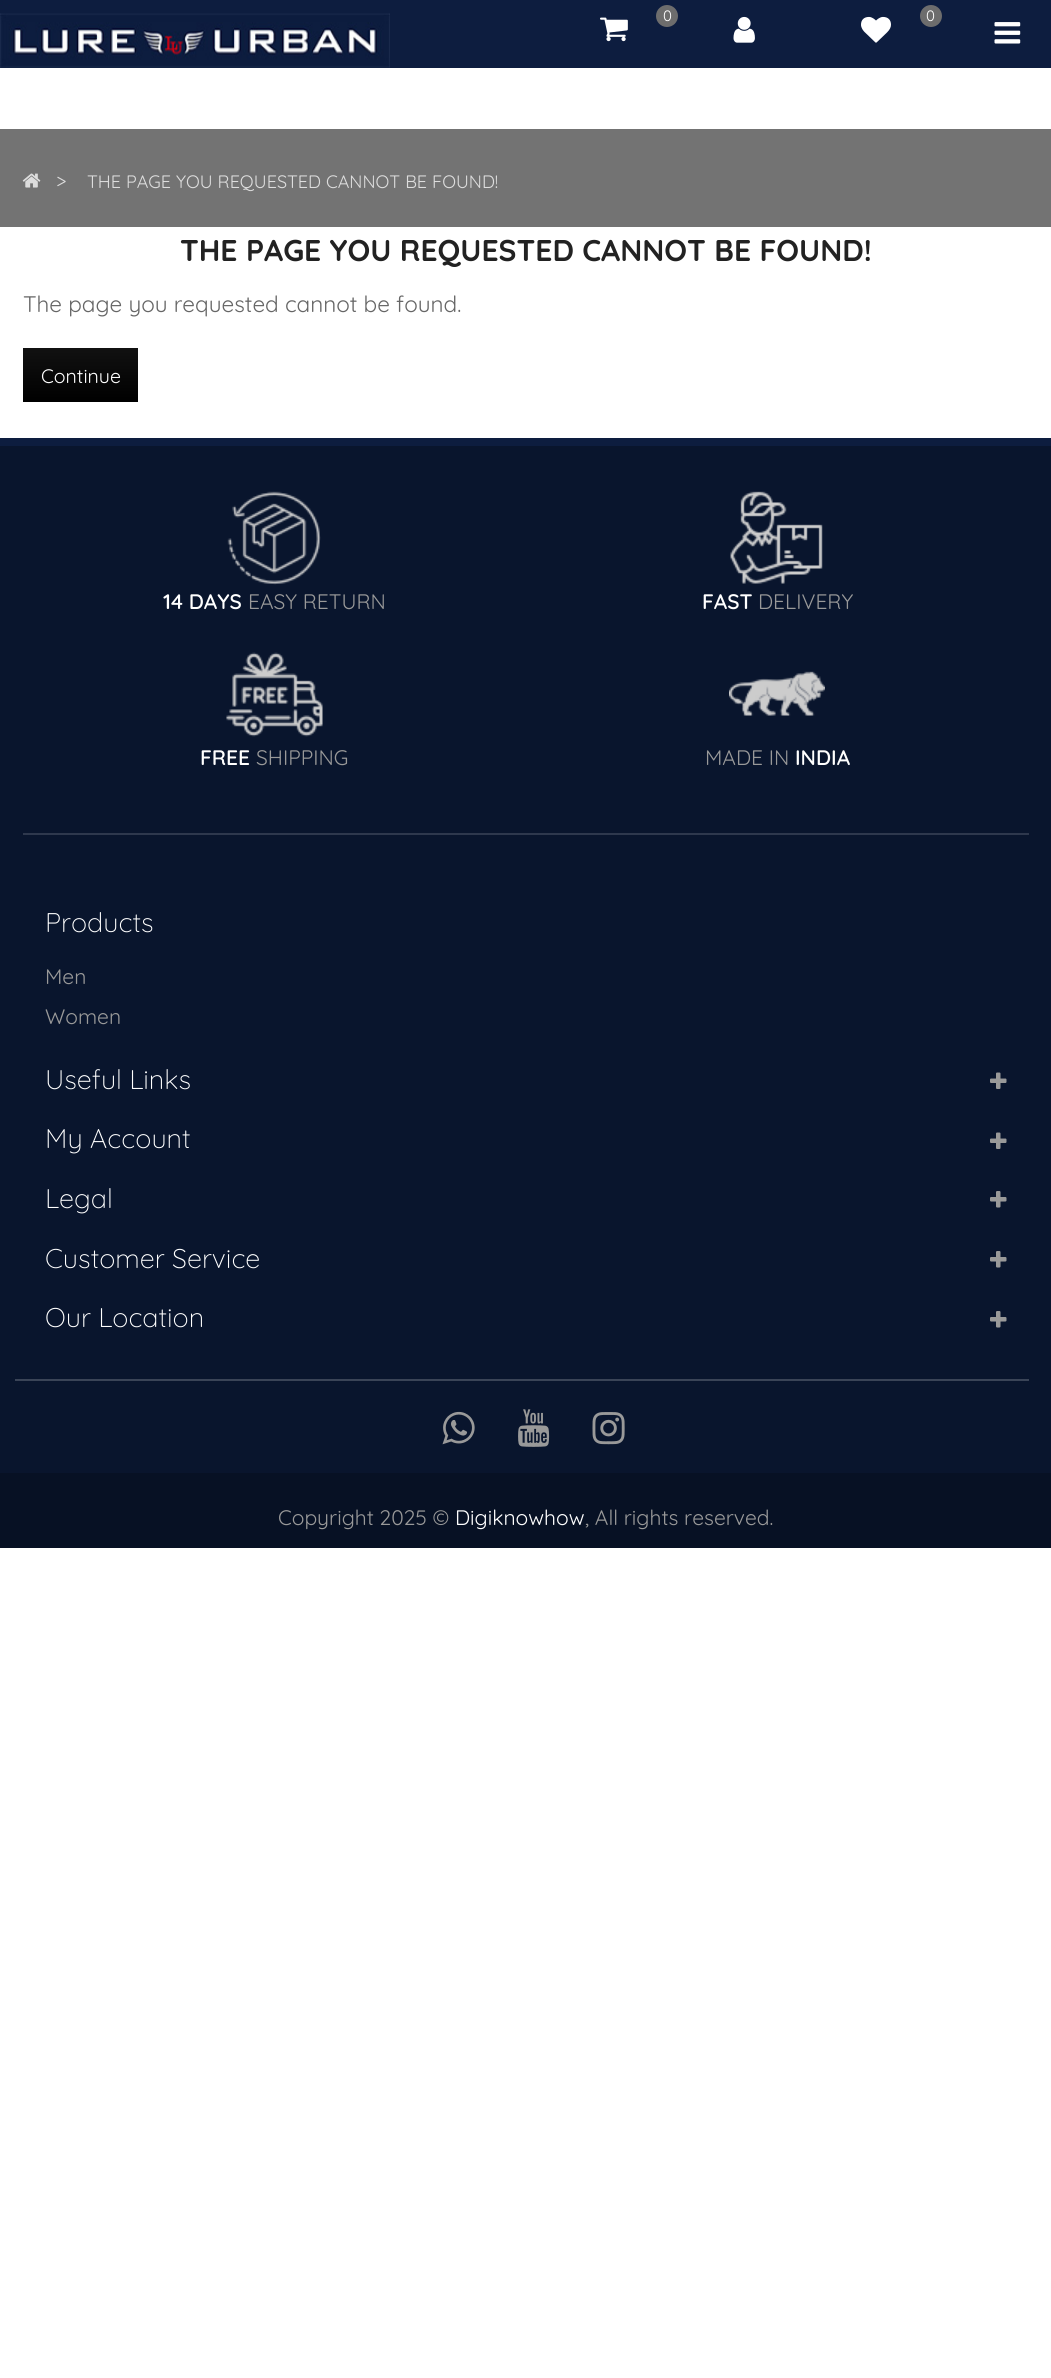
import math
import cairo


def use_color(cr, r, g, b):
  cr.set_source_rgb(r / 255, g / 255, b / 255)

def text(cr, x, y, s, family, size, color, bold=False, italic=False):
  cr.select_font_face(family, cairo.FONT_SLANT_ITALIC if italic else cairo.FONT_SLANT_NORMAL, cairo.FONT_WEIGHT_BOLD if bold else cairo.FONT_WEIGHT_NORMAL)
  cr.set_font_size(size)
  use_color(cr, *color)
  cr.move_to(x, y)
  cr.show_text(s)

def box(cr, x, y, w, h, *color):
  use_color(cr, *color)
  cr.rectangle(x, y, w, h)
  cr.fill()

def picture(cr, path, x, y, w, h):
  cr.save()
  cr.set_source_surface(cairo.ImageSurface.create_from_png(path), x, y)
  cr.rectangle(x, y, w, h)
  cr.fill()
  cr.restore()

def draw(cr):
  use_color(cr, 255, 255, 255)
  cr.paint()
  box(cr, 0, 0, 1051, 68, 13, 29, 63)
  picture(cr, "img_01.png", 0, 13, 390, 55)
  picture(cr, "img_02.png", 600, 17, 28, 25)
  use_color(cr, 109, 109, 109)
  cr.arc(667, 16, 11, 0, 2 * math.pi)
  cr.fill()
  picture(cr, "img_03.png", 733, 16, 22, 27)
  picture(cr, "img_04.png", 861, 16, 30, 27)
  cr.arc(931, 16, 11, 0, 2 * math.pi)
  cr.fill()
  picture(cr, "img_05.png", 994, 22, 27, 22)
  box(cr, 0, 129, 1051, 98, 115, 115, 115)
  picture(cr, "img_06.png", 22, 173, 19, 15)
  gradient = cairo.LinearGradient(80, 348, 80, 402)
  gradient.add_color_stop_rgba(0, 0.067, 0.067, 0.067, 1)
  gradient.add_color_stop_rgba(1, 0, 0, 0, 1)
  cr.set_source(gradient)
  cr.rectangle(23, 348, 115, 54)
  cr.fill()
  box(cr, 0, 446, 1051, 1027, 9, 21, 45)
  box(cr, 0, 438, 1051, 8, 13, 29, 63)
  box(cr, 23, 833, 1006, 2, 46, 56, 77)
  picture(cr, "img_07.png", 227, 491, 94, 94)
  picture(cr, "img_08.png", 730, 491, 93, 93)
  picture(cr, "img_09.png", 226, 652, 97, 85)
  picture(cr, "img_10.png", 729, 671, 96, 45)
  picture(cr, "img_11.png", 990, 1072, 17, 17)
  picture(cr, "img_11.png", 990, 1132, 17, 17)
  picture(cr, "img_12.png", 990, 1191, 17, 17)
  picture(cr, "img_12.png", 990, 1251, 17, 17)
  picture(cr, "img_12.png", 990, 1311, 17, 17)
  box(cr, 15, 1379, 1014, 2, 58, 68, 87)
  picture(cr, "img_13.png", 442, 1411, 33, 34)
  picture(cr, "img_14.png", 518, 1409, 32, 38)
  picture(cr, "img_15.png", 592, 1412, 33, 33)
  box(cr, 0, 1473, 1051, 75, 7, 17, 36)
  text(cr, 663, 21, "0", "Quicksand", 15, (255, 255, 255))
  text(cr, 926, 21, "0", "Quicksand", 15, (255, 255, 255))
  text(cr, 56, 188, ">", "Quicksand", 19.5, (221, 221, 221))
  text(cr, 87, 188, "THE PAGE YOU REQUESTED CANNOT BE FOUND!", "Quicksand", 18, (221, 221, 221))
  text(cr, 180, 261, "THE PAGE YOU REQUESTED CANNOT BE FOUND!", "Quicksand", 30, (34, 34, 34), bold=True)
  text(cr, 23, 312, "The page you requested cannot be found.", "Quicksand", 22.5, (102, 102, 102))
  text(cr, 41, 383, "Continue", "Quicksand", 19.5, (255, 255, 255))
  text(cr, 163, 609, "14 DAYS", "Quicksand SemiBold", 21, (255, 255, 255))
  text(cr, 248, 609, "EASY RETURN", "Quicksand", 21, (153, 153, 153))
  text(cr, 702, 609, "FAST", "Quicksand SemiBold", 21, (255, 255, 255))
  text(cr, 758, 609, "DELIVERY", "Quicksand", 21, (153, 153, 153))
  text(cr, 200, 765, "FREE", "Quicksand SemiBold", 21, (255, 255, 255))
  text(cr, 256, 765, "SHIPPING", "Quicksand", 21, (153, 153, 153))
  text(cr, 705, 765, "MADE IN", "Quicksand", 21, (153, 153, 153))
  text(cr, 795, 765, "INDIA", "Quicksand SemiBold", 21, (255, 255, 255))
  text(cr, 45, 932, "Products", "Quicksand Light", 27, (255, 255, 255))
  text(cr, 45, 984, "Men", "Quicksand", 21, (153, 153, 153))
  text(cr, 45, 1024, "Women", "Quicksand", 21, (153, 153, 153))
  text(cr, 45, 1089, "Useful Links", "Quicksand Light", 27, (255, 255, 255))
  text(cr, 45, 1148, "My Account", "Quicksand Light", 27, (255, 255, 255))
  text(cr, 45, 1208, "Legal", "Quicksand Light", 27, (255, 255, 255))
  text(cr, 45, 1268, "Customer Service", "Quicksand Light", 27, (255, 255, 255))
  text(cr, 45, 1327, "Our Location", "Quicksand Light", 27, (255, 255, 255))
  text(cr, 278, 1525, "Copyright 2025 ©", "Quicksand", 21, (153, 153, 153))
  text(cr, 455, 1525, "Digiknowhow", "Quicksand", 21, (255, 255, 255))
  text(cr, 585, 1525, ", All rights reserved.", "Quicksand", 21, (153, 153, 153))


surface = cairo.ImageSurface(cairo.FORMAT_RGB24, 1051, 2378)
cr = cairo.Context(surface)
options = cairo.FontOptions()
options.set_hint_metrics(cairo.HINT_METRICS_OFF)
options.set_hint_style(cairo.HINT_STYLE_NONE)
cr.set_font_options(options)
cr.set_miter_limit(4)
draw(cr)
surface.write_to_png("out.png")
